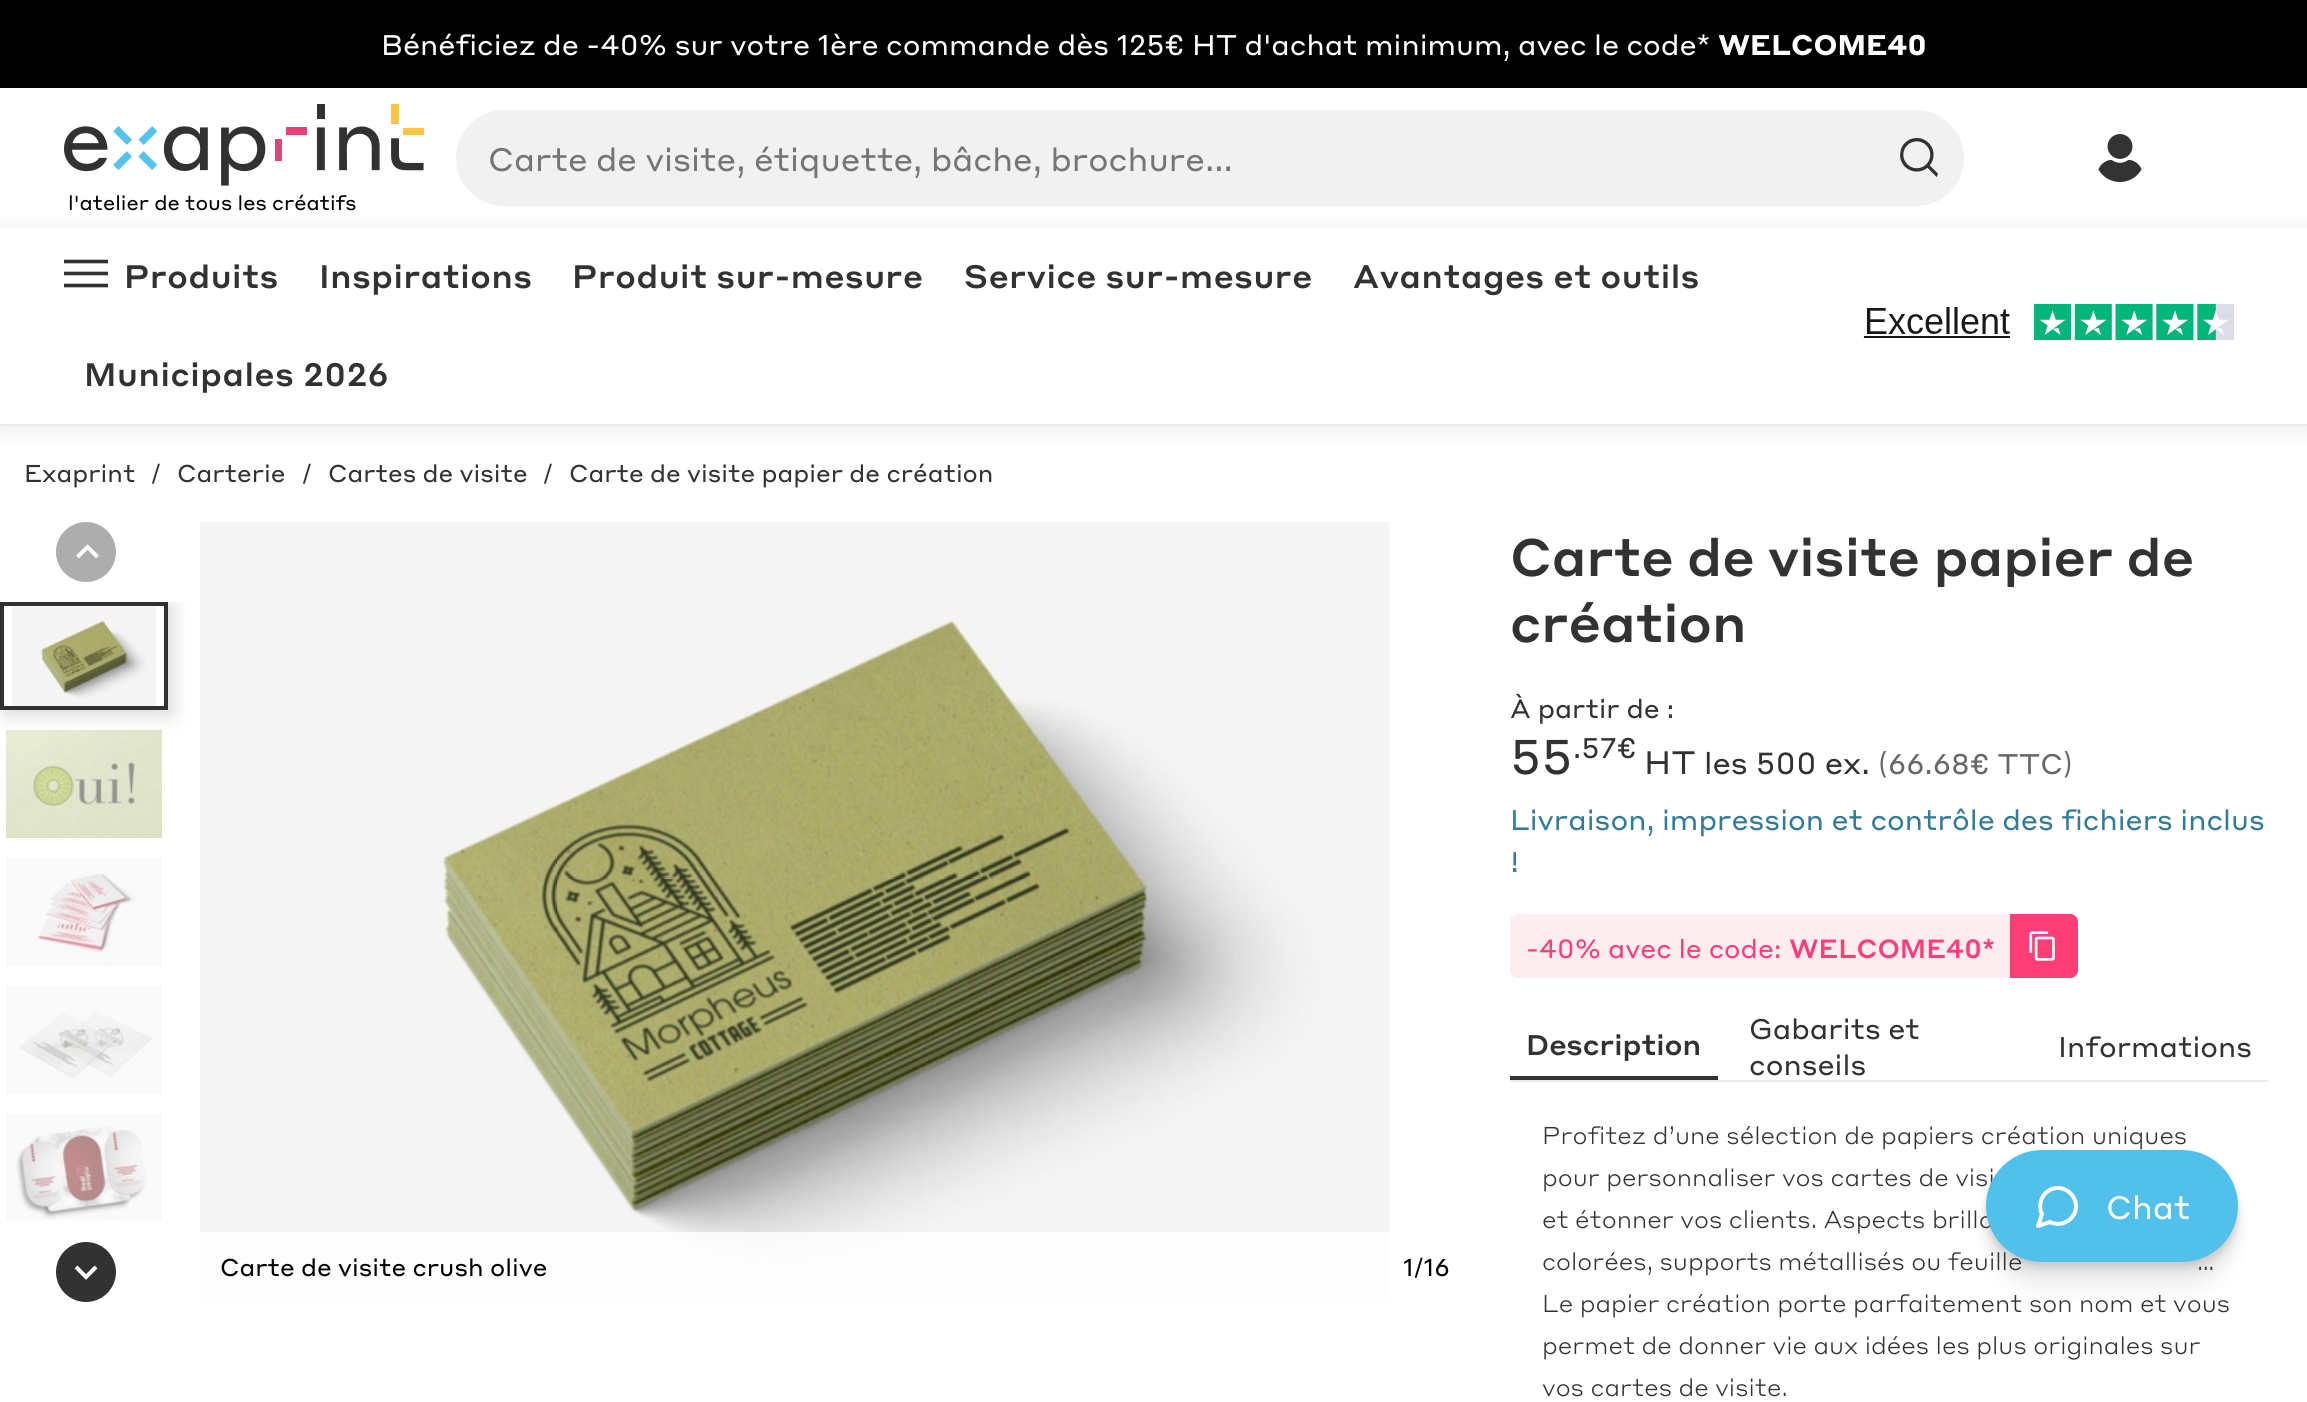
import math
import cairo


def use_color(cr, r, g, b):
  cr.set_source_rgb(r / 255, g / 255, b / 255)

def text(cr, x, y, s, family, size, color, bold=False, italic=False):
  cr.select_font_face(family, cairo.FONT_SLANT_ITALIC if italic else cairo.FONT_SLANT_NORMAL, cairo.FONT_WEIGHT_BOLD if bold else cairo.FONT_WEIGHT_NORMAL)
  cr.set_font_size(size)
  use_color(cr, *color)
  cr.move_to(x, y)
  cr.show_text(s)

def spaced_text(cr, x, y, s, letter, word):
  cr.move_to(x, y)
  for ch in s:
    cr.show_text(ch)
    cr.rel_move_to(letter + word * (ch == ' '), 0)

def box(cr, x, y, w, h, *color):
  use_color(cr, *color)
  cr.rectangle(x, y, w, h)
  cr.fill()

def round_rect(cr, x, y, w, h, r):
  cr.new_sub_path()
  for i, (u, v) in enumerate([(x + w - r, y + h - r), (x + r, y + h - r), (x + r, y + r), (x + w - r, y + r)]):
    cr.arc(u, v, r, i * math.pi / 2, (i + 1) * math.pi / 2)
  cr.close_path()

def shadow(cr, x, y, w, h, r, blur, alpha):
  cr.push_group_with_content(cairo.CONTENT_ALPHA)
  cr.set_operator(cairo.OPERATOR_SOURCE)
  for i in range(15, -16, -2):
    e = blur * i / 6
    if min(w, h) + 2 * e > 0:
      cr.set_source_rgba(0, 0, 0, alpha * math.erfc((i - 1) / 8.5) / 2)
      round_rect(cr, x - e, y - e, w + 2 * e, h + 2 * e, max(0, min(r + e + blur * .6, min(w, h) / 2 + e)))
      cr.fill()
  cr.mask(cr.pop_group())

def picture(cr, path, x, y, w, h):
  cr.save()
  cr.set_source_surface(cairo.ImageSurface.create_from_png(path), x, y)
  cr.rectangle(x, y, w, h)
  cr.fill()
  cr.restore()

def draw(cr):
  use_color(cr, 255, 255, 255)
  cr.paint()
  box(cr, 0, 0, 2307, 88, 0, 0, 0)
  cr.save()
  cr.set_fill_rule(cairo.FILL_RULE_EVEN_ODD)
  cr.new_path()
  cr.move_to(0, 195)
  cr.line_to(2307, 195)
  cr.line_to(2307, 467)
  cr.line_to(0, 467)
  cr.close_path()
  cr.move_to(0, 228)
  cr.line_to(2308, 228)
  cr.line_to(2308, 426)
  cr.line_to(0, 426)
  cr.close_path()
  cr.clip()
  use_color(cr, 0, 0, 0)
  shadow(cr, 0, 232, 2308, 198, 0, 12, 0.08)
  cr.restore()
  use_color(cr, 241, 241, 241)
  round_rect(cr, 456, 110, 1508, 96, 48)
  cr.fill()
  picture(cr, "img_01.png", 1900, 138, 38, 40)
  picture(cr, "img_02.png", 2098, 134, 44, 48)
  picture(cr, "img_03.png", 64, 104, 360, 82)
  box(cr, 0, 424, 2307, 2, 235, 235, 235)
  cr.new_path()
  cr.move_to(64, 261.5)
  cr.line_to(108, 261.5)
  cr.move_to(64, 273.5)
  cr.line_to(108, 273.5)
  cr.move_to(64, 285.5)
  cr.line_to(108, 285.5)
  use_color(cr, 50, 50, 50)
  cr.set_line_width(3.6)
  cr.stroke()
  picture(cr, "img_04.png", 1863, 304, 371, 36)
  cr.save()
  cr.rectangle(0, 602, 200, 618)
  cr.clip()
  cr.set_fill_rule(cairo.FILL_RULE_EVEN_ODD)
  cr.new_path()
  cr.move_to(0, 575)
  cr.line_to(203, 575)
  cr.line_to(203, 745)
  cr.line_to(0, 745)
  cr.close_path()
  cr.move_to(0, 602)
  cr.line_to(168, 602)
  cr.line_to(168, 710)
  cr.line_to(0, 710)
  cr.close_path()
  cr.clip()
  use_color(cr, 50, 50, 50)
  shadow(cr, 4, 606, 168, 108, 0, 10, 0.2)
  cr.restore()
  use_color(cr, 173, 173, 173)
  cr.arc(86, 552, 30, 0, 2 * math.pi)
  cr.fill()
  cr.new_path()
  cr.move_to(77.5, 557)
  cr.line_to(87.5, 547)
  cr.line_to(97.5, 557)
  use_color(cr, 255, 255, 255)
  cr.set_line_width(4)
  cr.stroke()
  cr.rectangle(2, 604, 164, 104)
  use_color(cr, 50, 50, 50)
  cr.stroke()
  picture(cr, "img_05.png", 12, 606, 144, 100)
  picture(cr, "img_06.png", 6, 730, 156, 108)
  picture(cr, "img_07.png", 6, 858, 156, 108)
  picture(cr, "img_08.png", 6, 986, 156, 108)
  picture(cr, "img_09.png", 6, 1114, 156, 106)
  cr.arc(86, 1272, 30, 0, 2 * math.pi)
  cr.fill()
  cr.new_path()
  cr.move_to(96, 1267)
  cr.line_to(86, 1277)
  cr.line_to(76, 1267)
  use_color(cr, 255, 255, 255)
  cr.stroke()
  picture(cr, "img_10.png", 200, 522, 1190, 780)
  cr.set_source_rgba(1, 1, 1, 0.8)
  cr.rectangle(200, 1232, 1190, 70)
  cr.fill()
  use_color(cr, 253, 236, 240)
  cr.new_path()
  cr.move_to(1518, 914)
  cr.line_to(2010, 914)
  cr.line_to(2010, 978)
  cr.line_to(1518, 978)
  cr.curve_to(1513.5, 978, 1510, 974.5, 1510, 970)
  cr.line_to(1510, 922)
  cr.curve_to(1510, 917.5, 1513.5, 914, 1518, 914)
  cr.close_path()
  cr.fill()
  use_color(cr, 255, 61, 119)
  cr.new_path()
  cr.move_to(2010, 914)
  cr.line_to(2070, 914)
  cr.curve_to(2074.5, 914, 2078, 917.5, 2078, 922)
  cr.line_to(2078, 970)
  cr.curve_to(2078, 974.5, 2074.5, 978, 2070, 978)
  cr.line_to(2010, 978)
  cr.close_path()
  cr.fill()
  picture(cr, "img_11.png", 2029, 931, 26, 30)
  box(cr, 1510, 1080, 758, 2, 235, 235, 235)
  box(cr, 1510, 1076, 208, 4, 50, 50, 50)
  use_color(cr, 0, 0, 0)
  shadow(cr, 1986, 1154, 252, 112, 56, 3, 0.1)
  shadow(cr, 1986, 1162, 252, 112, 56, 6, 0.09)
  shadow(cr, 1986, 1178, 252, 112, 56, 8, 0.05)
  text(cr, 381, 55, "Bénéficiez de -40% sur votre 1ère commande dès 125€ HT d'achat minimum, avec le code*", "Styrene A", 28, (255, 255, 255))
  text(cr, 1718, 55, "WELCOME40", "Styrene A", 28, (255, 255, 255), bold=True)
  text(cr, 488, 171, "Carte de visite, étiquette, bâche, brochure...", "Styrene A", 32, (117, 117, 117))
  text(cr, 68, 210, "l'atelier de tous les créatifs", "Styrene A", 20, (0, 0, 0))
  cr.select_font_face("Styrene A Medium")
  cr.set_font_size(32)
  use_color(cr, 50, 50, 50)
  spaced_text(cr, 124, 288, "Produits", 0.6, 0)
  spaced_text(cr, 319, 288, "Inspirations", 0.6, 0)
  spaced_text(cr, 572, 288, "Produit sur-mesure", 0.6, 0)
  spaced_text(cr, 964, 288, "Service sur-mesure", 0.6, 0)
  spaced_text(cr, 1353, 288, "Avantages et outils", 0.6, 0)
  spaced_text(cr, 84, 386, "Municipales 2026", 0.6, 0)
  text(cr, 24, 482, "Exaprint", "Styrene A", 24, (50, 50, 50))
  text(cr, 151, 482, "/", "Styrene A", 24, (50, 50, 50))
  text(cr, 177, 482, "Carterie", "Styrene A", 24, (50, 50, 50))
  text(cr, 302, 482, "/", "Styrene A", 24, (50, 50, 50))
  text(cr, 328, 482, "Cartes de visite", "Styrene A", 24, (50, 50, 50))
  text(cr, 543, 482, "/", "Styrene A", 24, (50, 50, 50))
  text(cr, 569, 482, "Carte de visite papier de création", "Styrene A", 24, (50, 50, 50))
  text(cr, 220, 1276, "Carte de visite crush olive", "Styrene A", 24, (0, 0, 0))
  text(cr, 1403, 1276, "1/16", "Styrene A", 24, (0, 0, 0))
  text(cr, 1510, 576, "Carte de visite papier de", "Styrene A Medium", 52, (50, 50, 50))
  text(cr, 1510, 642, "création", "Styrene A Medium", 52, (50, 50, 50))
  text(cr, 1510, 718, "À partir de :", "Styrene A", 26, (50, 50, 50))
  text(cr, 1510, 774, "55", "Styrene A", 48, (50, 50, 50))
  text(cr, 1573, 758, ".57€", "Styrene A", 28, (50, 50, 50))
  text(cr, 1644, 774, "HT", "Styrene A", 32, (50, 50, 50))
  text(cr, 1704, 774, "les 500 ex.", "Styrene A", 30, (50, 50, 50))
  text(cr, 1878, 774, "(66.68€ TTC)", "Styrene A", 28, (103, 103, 103))
  text(cr, 1510, 830, "Livraison, impression et contrôle des fichiers inclus", "Styrene A", 28, (51, 124, 153))
  text(cr, 1510, 872, "!", "Styrene A", 28, (51, 124, 153))
  text(cr, 1526, 958, "-40% avec le code:", "Styrene A", 26, (255, 61, 119))
  text(cr, 1789, 958, "WELCOME40*", "Styrene A Medium", 26, (255, 61, 119))
  text(cr, 1526, 1055, "Description", "Styrene A Medium", 28, (50, 50, 50))
  text(cr, 1749, 1039, "Gabarits et", "Styrene A", 28, (50, 50, 50))
  text(cr, 1749, 1075, "conseils", "Styrene A", 28, (50, 50, 50))
  text(cr, 2058, 1057, "Informations", "Styrene A", 28, (50, 50, 50))
  text(cr, 1542, 1144, "Profitez d’une sélection de papiers création uniques", "Styrene A Light", 24, (50, 50, 50))
  text(cr, 1542, 1186, "pour personnaliser vos cartes de visi", "Styrene A Light", 24, (50, 50, 50))
  text(cr, 1542, 1228, "et étonner vos clients. Aspects brilla", "Styrene A Light", 24, (50, 50, 50))
  text(cr, 1542, 1270, "colorées, supports métallisés ou feuille", "Styrene A Light", 24, (50, 50, 50))
  text(cr, 2197, 1270, "…", "Styrene A Light", 24, (50, 50, 50))
  text(cr, 1542, 1312, "Le papier création porte parfaitement son nom et vous", "Styrene A Light", 24, (50, 50, 50))
  text(cr, 1542, 1354, "permet de donner vie aux idées les plus originales sur", "Styrene A Light", 24, (50, 50, 50))
  text(cr, 1542, 1396, "vos cartes de visite.", "Styrene A Light", 24, (50, 50, 50))
  use_color(cr, 81, 193, 236)
  round_rect(cr, 1986, 1150, 252, 112, 56)
  cr.fill()
  cr.new_path()
  cr.move_to(2050, 1222)
  cr.curve_to(2057.5, 1226, 2067.5, 1223.5, 2072.5, 1216.5)
  cr.curve_to(2078, 1209.5, 2077, 1199.5, 2070.5, 1193.5)
  cr.curve_to(2064.5, 1187, 2054.5, 1186, 2047.5, 1191.5)
  cr.curve_to(2040.5, 1196.5, 2038, 1206.5, 2042, 1214)
  cr.line_to(2038, 1226)
  cr.close_path()
  use_color(cr, 255, 255, 255)
  cr.set_line_cap(cairo.LINE_CAP_ROUND)
  cr.set_line_join(cairo.LINE_JOIN_ROUND)
  cr.stroke()
  text(cr, 2106, 1219, "Chat", "Styrene A", 32, (255, 255, 255))


surface = cairo.ImageSurface(cairo.FORMAT_RGB24, 2307, 1402)
cr = cairo.Context(surface)
options = cairo.FontOptions()
options.set_hint_metrics(cairo.HINT_METRICS_OFF)
options.set_hint_style(cairo.HINT_STYLE_NONE)
cr.set_font_options(options)
cr.set_miter_limit(4)
draw(cr)
surface.write_to_png("out.png")
